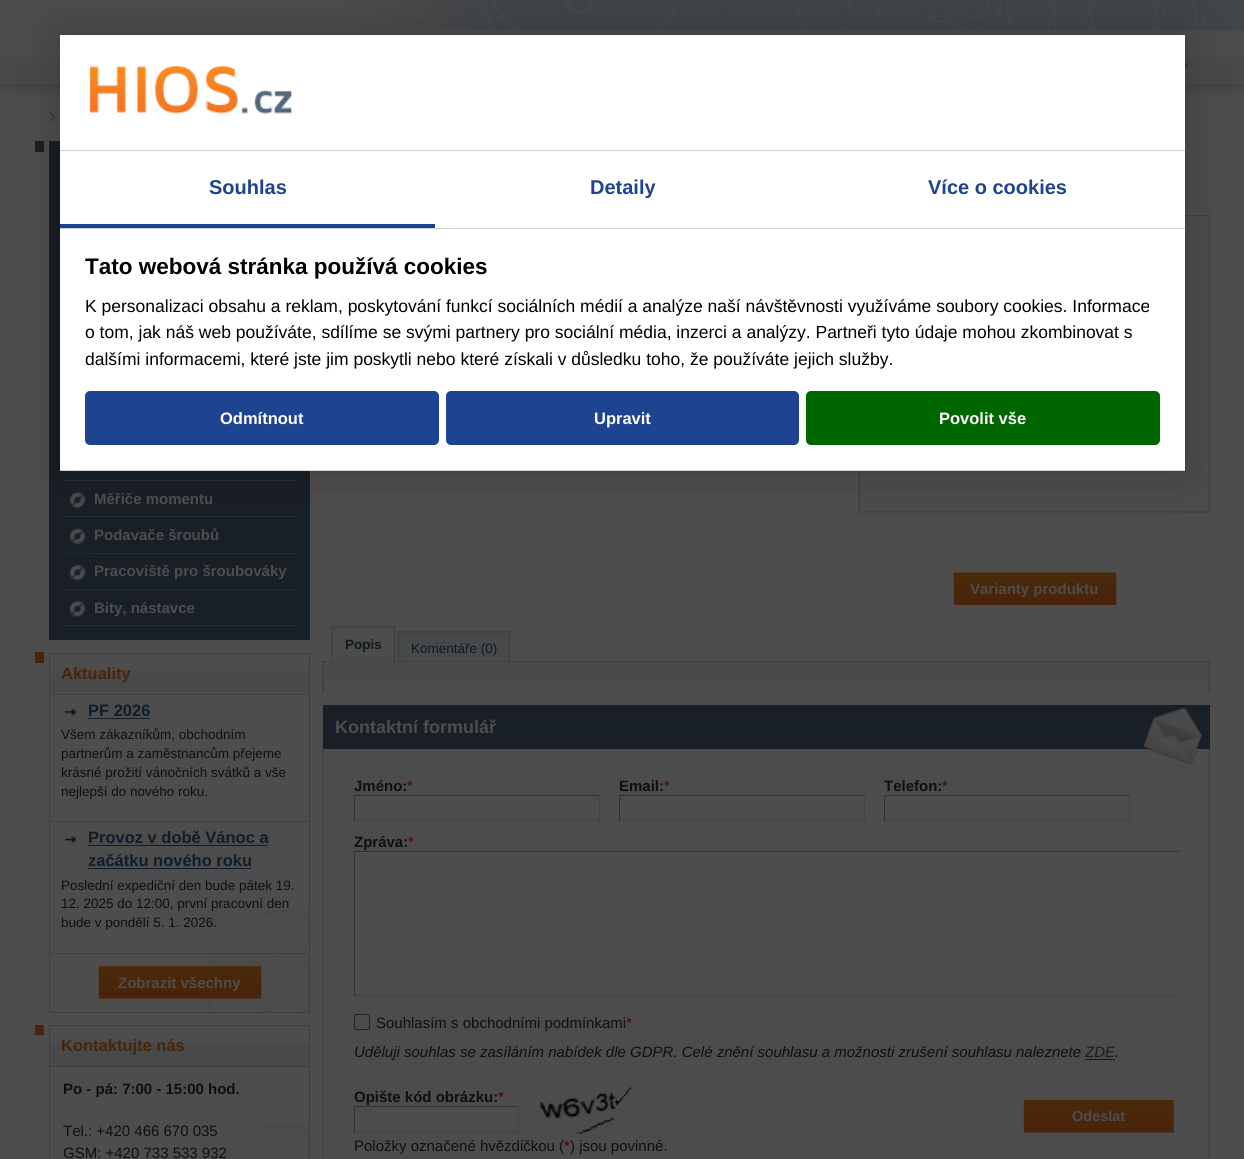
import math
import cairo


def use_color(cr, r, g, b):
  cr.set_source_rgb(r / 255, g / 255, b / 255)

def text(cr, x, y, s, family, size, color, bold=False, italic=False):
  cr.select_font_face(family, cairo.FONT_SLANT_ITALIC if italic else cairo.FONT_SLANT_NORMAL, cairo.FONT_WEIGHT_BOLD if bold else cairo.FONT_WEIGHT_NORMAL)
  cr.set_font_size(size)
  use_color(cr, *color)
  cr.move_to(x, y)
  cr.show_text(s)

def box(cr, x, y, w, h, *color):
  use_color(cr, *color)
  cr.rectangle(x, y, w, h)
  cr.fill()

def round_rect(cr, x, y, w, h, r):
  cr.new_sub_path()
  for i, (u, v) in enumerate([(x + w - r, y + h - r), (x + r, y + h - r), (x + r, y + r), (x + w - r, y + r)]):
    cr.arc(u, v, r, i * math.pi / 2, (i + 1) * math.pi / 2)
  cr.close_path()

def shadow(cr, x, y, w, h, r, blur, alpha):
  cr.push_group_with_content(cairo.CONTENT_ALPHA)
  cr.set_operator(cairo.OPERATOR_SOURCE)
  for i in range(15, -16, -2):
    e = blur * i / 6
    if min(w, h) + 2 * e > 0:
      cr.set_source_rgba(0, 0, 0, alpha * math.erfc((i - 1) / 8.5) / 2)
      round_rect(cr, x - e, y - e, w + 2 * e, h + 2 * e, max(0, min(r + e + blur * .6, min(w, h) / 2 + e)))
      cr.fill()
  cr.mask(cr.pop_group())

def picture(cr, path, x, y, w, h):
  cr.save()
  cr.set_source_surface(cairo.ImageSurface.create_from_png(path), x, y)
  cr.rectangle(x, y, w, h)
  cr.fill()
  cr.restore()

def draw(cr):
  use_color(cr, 77, 77, 77)
  cr.paint()
  picture(cr, "img_01.png", 0, 86, 1244, 10)
  picture(cr, "img_02.png", 0, 0, 1244, 87)
  picture(cr, "img_03.png", 324, 34, 90, 1)
  picture(cr, "img_04.png", 425, 30, 91, 5)
  picture(cr, "img_05.png", 527, 30, 84, 5)
  picture(cr, "img_06.png", 1185, 61, 3, 8)
  picture(cr, "img_08.png", 49, 112, 7, 10)
  box(cr, 35, 141, 9, 11, 25, 31, 38)
  box(cr, 49, 141, 261, 499, 25, 31, 38)
  box(cr, 63, 480, 233, 1, 38, 43, 47)
  picture(cr, "img_09.png", 69, 471, 17, 1)
  box(cr, 63, 516, 233, 1, 38, 43, 47)
  picture(cr, "img_10.png", 69, 491, 17, 17)
  picture(cr, "img_11.png", 69, 527, 17, 17)
  picture(cr, "img_22.png", 1185, 201, 25, 2)
  picture(cr, "img_23.png", 858, 215, 352, 298)
  use_color(cr, 0, 0, 0)
  shadow(cr, 60, 35, 1125, 436, 0, 25, 0.2)
  box(cr, 60, 35, 1125, 435, 255, 255, 255)
  box(cr, 60, 150, 1125, 1, 210, 210, 210)
  picture(cr, "img_07.png", 89, 66, 203, 48)
  box(cr, 60, 228, 1125, 1, 210, 210, 210)
  box(cr, 60, 224, 375, 4, 30, 68, 145)
  box(cr, 60, 470, 1125, 1, 210, 210, 210)
  use_color(cr, 30, 68, 145)
  round_rect(cr, 85, 391, 354, 54, 5)
  cr.fill()
  round_rect(cr, 446, 391, 353, 54, 5)
  cr.fill()
  use_color(cr, 0, 102, 0)
  round_rect(cr, 806, 391, 354, 54, 5)
  cr.fill()
  box(cr, 63, 553, 233, 1, 38, 43, 47)
  box(cr, 63, 589, 233, 1, 38, 43, 47)
  picture(cr, "img_12.png", 63, 553, 30, 28)
  box(cr, 63, 625, 233, 1, 38, 43, 47)
  picture(cr, "img_13.png", 69, 600, 17, 17)
  box(cr, 35, 652, 9, 11, 73, 35, 11)
  picture(cr, "img_14.png", 206, 910, 103, 102)
  picture(cr, "img_15.png", 50, 670, 259, 24)
  box(cr, 49, 653, 261, 1, 59, 64, 69)
  box(cr, 309, 653, 1, 41, 59, 64, 69)
  box(cr, 49, 653, 1, 41, 59, 64, 69)
  cr.rectangle(49.5, 694.5, 260, 318)
  cr.set_line_width(1)
  cr.stroke()
  box(cr, 51, 821, 257, 1, 59, 64, 69)
  picture(cr, "img_16.png", 65, 708, 12, 9)
  box(cr, 88, 718, 62, 1, 17, 29, 40)
  box(cr, 51, 953, 257, 1, 59, 64, 69)
  picture(cr, "img_17.png", 65, 836, 12, 8)
  box(cr, 88, 845, 180, 1, 17, 29, 40)
  box(cr, 88, 868, 163, 1, 17, 29, 40)
  picture(cr, "img_18.png", 98, 966, 164, 33)
  picture(cr, "img_19.png", 35, 1025, 9, 11)
  picture(cr, "img_20.png", 221, 1125, 88, 34)
  picture(cr, "img_21.png", 50, 1042, 259, 24)
  box(cr, 49, 1025, 261, 1, 59, 64, 69)
  box(cr, 309, 1025, 1, 41, 59, 64, 69)
  box(cr, 49, 1025, 1, 41, 59, 64, 69)
  cr.rectangle(49.5, 1066.5, 260, 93)
  cr.stroke()
  picture(cr, "img_24.png", 953, 572, 164, 33)
  picture(cr, "img_29.png", 322, 661, 888, 32)
  picture(cr, "img_30.png", 322, 679, 888, 14)
  picture(cr, "img_31.png", 322, 661, 888, 32)
  picture(cr, "img_25.png", 331, 626, 64, 38)
  picture(cr, "img_26.png", 337, 626, 58, 38)
  picture(cr, "img_27.png", 397, 631, 113, 31)
  picture(cr, "img_28.png", 404, 632, 106, 30)
  picture(cr, "img_32.png", 322, 705, 888, 454)
  box(cr, 323, 705, 887, 44, 25, 31, 38)
  picture(cr, "img_33.png", 1143, 707, 60, 59)
  box(cr, 354, 795, 246, 1, 49, 49, 49)
  box(cr, 599, 795, 1, 26, 66, 66, 66)
  box(cr, 354, 820, 246, 1, 66, 66, 66)
  box(cr, 354, 795, 1, 26, 49, 49, 49)
  box(cr, 619, 795, 246, 1, 49, 49, 49)
  box(cr, 864, 795, 1, 26, 66, 66, 66)
  box(cr, 619, 820, 246, 1, 66, 66, 66)
  box(cr, 619, 795, 1, 26, 49, 49, 49)
  box(cr, 884, 795, 246, 1, 49, 49, 49)
  box(cr, 1129, 795, 1, 26, 66, 66, 66)
  box(cr, 884, 820, 246, 1, 66, 66, 66)
  box(cr, 884, 795, 1, 26, 49, 49, 49)
  box(cr, 354, 851, 825, 1, 49, 49, 49)
  box(cr, 354, 995, 825, 1, 66, 66, 66)
  box(cr, 354, 851, 1, 145, 49, 49, 49)
  round_rect(cr, 354.5, 1014.5, 15, 15, 2)
  use_color(cr, 35, 35, 35)
  cr.stroke()
  box(cr, 1085, 1059, 30, 1, 17, 29, 40)
  picture(cr, "img_34.png", 539, 1087, 93, 47)
  box(cr, 354, 1106, 165, 1, 49, 49, 49)
  box(cr, 518, 1106, 1, 27, 66, 66, 66)
  box(cr, 354, 1131, 165, 1, 66, 66, 66)
  box(cr, 354, 1106, 1, 27, 49, 49, 49)
  picture(cr, "img_35.png", 1023, 1100, 151, 33)
  text(cr, 209, 194, "Souhlas", "Liberation Sans", 20, (30, 68, 145), bold=True)
  text(cr, 590, 194, "Detaily", "Liberation Sans", 20, (30, 68, 145), bold=True)
  text(cr, 928, 194, "Více o cookies", "Liberation Sans", 20, (30, 68, 145), bold=True)
  text(cr, 85, 274, "Tato webová stránka používá cookies", "Liberation Sans", 22.5, (0, 0, 0), bold=True)
  text(cr, 85, 312, "K personalizaci obsahu a reklam, poskytování funkcí sociálních médií a analýze naší návštěvnosti využíváme soubory cookies. Informace", "Liberation Sans", 17.5, (0, 0, 0))
  text(cr, 85, 338, "o tom, jak náš web používáte, sdílíme se svými partnery pro sociální média, inzerci a analýzy. Partneři tyto údaje mohou zkombinovat s", "Liberation Sans", 17.5, (0, 0, 0))
  text(cr, 85, 365, "dalšími informacemi, které jste jim poskytli nebo které získali v důsledku toho, že používáte jejich služby.", "Liberation Sans", 17.5, (0, 0, 0))
  text(cr, 220, 424, "Odmítnout", "Liberation Sans", 16.5, (255, 255, 255), bold=True)
  text(cr, 594, 424, "Upravit", "Liberation Sans", 16.5, (255, 255, 255), bold=True)
  text(cr, 939, 424, "Povolit vše", "Liberation Sans", 16.5, (255, 255, 255), bold=True)
  text(cr, 94, 504, "Měřiče momentu", "Liberation Sans", 15, (77, 77, 77), bold=True)
  text(cr, 94, 540, "Podavače šroubů", "Liberation Sans", 15, (77, 77, 77), bold=True)
  text(cr, 94, 576, "Pracoviště pro šroubováky", "Liberation Sans", 15, (77, 77, 77), bold=True)
  text(cr, 94, 613, "Bity, nástavce", "Liberation Sans", 15, (77, 77, 77), bold=True)
  text(cr, 61, 679, "Aktuality", "Liberation Sans", 16.5, (73, 35, 11), bold=True)
  text(cr, 88, 716, "PF 2026", "Liberation Sans", 16.5, (17, 29, 40), bold=True)
  text(cr, 61, 739, "Všem zákazníkům, obchodním", "Liberation Sans", 13.5, (15, 15, 15))
  text(cr, 61, 758, "partnerům a zaměstnancům přejeme", "Liberation Sans", 13.5, (15, 15, 15))
  text(cr, 61, 777, "krásné prožití vánočních svátků a vše", "Liberation Sans", 13.5, (15, 15, 15))
  text(cr, 61, 796, "nejlepší do nového roku.", "Liberation Sans", 13.5, (15, 15, 15))
  text(cr, 88, 843, "Provoz v době Vánoc a", "Liberation Sans", 16.5, (17, 29, 40), bold=True)
  text(cr, 88, 866, "začátku nového roku", "Liberation Sans", 16.5, (17, 29, 40), bold=True)
  text(cr, 61, 890, "Poslední expediční den bude pátek 19.", "Liberation Sans", 13.5, (15, 15, 15))
  text(cr, 61, 908, "12. 2025 do 12:00, první pracovní den", "Liberation Sans", 13.5, (15, 15, 15))
  text(cr, 61, 927, "bude v pondělí 5. 1. 2026.", "Liberation Sans", 13.5, (15, 15, 15))
  text(cr, 118, 988, "Zobrazit všechny", "Liberation Sans", 15, (77, 77, 77), bold=True)
  text(cr, 61, 1051, "Kontaktujte nás", "Liberation Sans", 16.5, (73, 35, 11), bold=True)
  text(cr, 63, 1094, "Po - pá: 7:00 - 15:00 hod.", "Liberation Sans", 15, (15, 15, 15), bold=True)
  text(cr, 63, 1136, "Tel.: +420 466 670 035", "Liberation Sans", 15, (15, 15, 15))
  text(cr, 63, 1158, "GSM: +420 733 533 932", "Liberation Sans", 15, (15, 15, 15))
  text(cr, 970, 594, "Varianty produktu", "Liberation Sans", 15, (77, 77, 77), bold=True)
  text(cr, 345, 649, "Popis", "Liberation Sans", 13.5, (17, 26, 29), bold=True)
  text(cr, 411, 653, "Komentáře (0)", "Liberation Sans", 13.5, (17, 26, 29))
  text(cr, 335, 733, "Kontaktní formulář", "Liberation Sans", 18, (77, 77, 77), bold=True)
  text(cr, 354, 791, "Jméno:", "Liberation Sans", 15, (15, 15, 15), bold=True)
  text(cr, 407, 791, "*", "Liberation Sans", 15, (77, 0, 0))
  text(cr, 619, 791, "Email:", "Liberation Sans", 15, (15, 15, 15), bold=True)
  text(cr, 664, 791, "*", "Liberation Sans", 15, (77, 0, 0))
  text(cr, 884, 791, "Telefon:", "Liberation Sans", 15, (15, 15, 15), bold=True)
  text(cr, 942, 791, "*", "Liberation Sans", 15, (77, 0, 0))
  text(cr, 354, 847, "Zpráva:", "Liberation Sans", 15, (15, 15, 15), bold=True)
  text(cr, 408, 847, "*", "Liberation Sans", 15, (77, 0, 0))
  text(cr, 376, 1028, "Souhlasím s obchodními podmínkami", "Liberation Sans", 15, (15, 15, 15))
  text(cr, 626, 1028, "*", "Liberation Sans", 15, (77, 0, 0))
  text(cr, 354, 1057, "Uděluji souhlas se zasíláním nabídek dle GDPR. Celé znění souhlasu a možnosti zrušení souhlasu naleznete", "Liberation Sans", 15, (15, 15, 15), italic=True)
  text(cr, 1085, 1057, "ZDE", "Liberation Sans", 15, (17, 29, 40), italic=True)
  text(cr, 1115, 1057, ".", "Liberation Sans", 15, (15, 15, 15), italic=True)
  text(cr, 354, 1102, "Opište kód obrázku:", "Liberation Sans", 15, (15, 15, 15), bold=True)
  text(cr, 498, 1102, "*", "Liberation Sans", 15, (77, 0, 0))
  text(cr, 354, 1151, "Položky označené hvězdičkou (", "Liberation Sans", 15, (15, 15, 15))
  text(cr, 564, 1151, "*", "Liberation Sans", 15, (77, 0, 0))
  text(cr, 570, 1151, ") jsou povinné.", "Liberation Sans", 15, (15, 15, 15))
  text(cr, 1072, 1121, "Odeslat", "Liberation Sans", 14.5, (77, 77, 77), bold=True)


surface = cairo.ImageSurface(cairo.FORMAT_RGB24, 1244, 1159)
cr = cairo.Context(surface)
options = cairo.FontOptions()
options.set_hint_metrics(cairo.HINT_METRICS_OFF)
options.set_hint_style(cairo.HINT_STYLE_NONE)
cr.set_font_options(options)
cr.set_miter_limit(4)
draw(cr)
surface.write_to_png("out.png")
